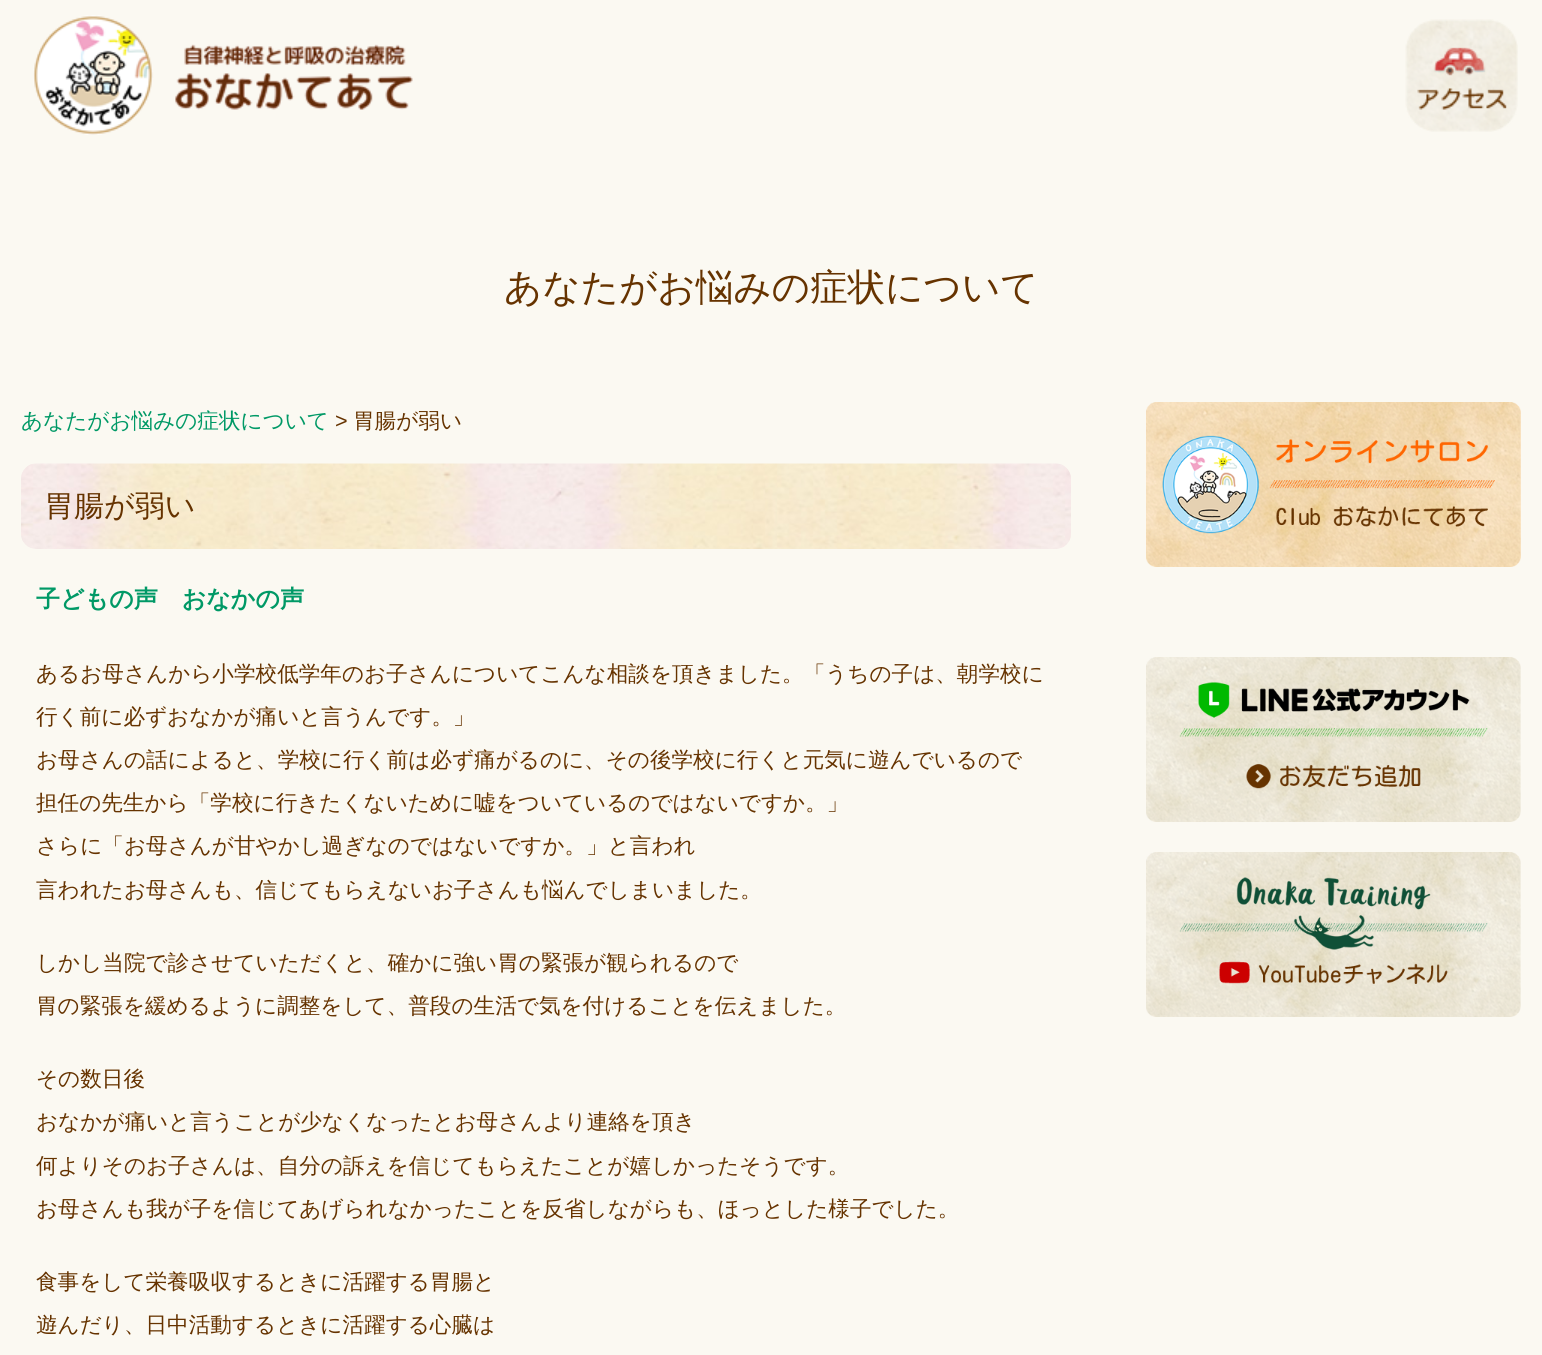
import math
import cairo


def use_color(cr, r, g, b):
  cr.set_source_rgb(r / 255, g / 255, b / 255)

def text(cr, x, y, s, family, size, color, bold=False, italic=False):
  cr.select_font_face(family, cairo.FONT_SLANT_ITALIC if italic else cairo.FONT_SLANT_NORMAL, cairo.FONT_WEIGHT_BOLD if bold else cairo.FONT_WEIGHT_NORMAL)
  cr.set_font_size(size)
  use_color(cr, *color)
  cr.move_to(x, y)
  cr.show_text(s)

def picture(cr, path, x, y, w, h):
  cr.save()
  cr.set_source_surface(cairo.ImageSurface.create_from_png(path), x, y)
  cr.rectangle(x, y, w, h)
  cr.fill()
  cr.restore()

def draw(cr):
  use_color(cr, 251, 249, 242)
  cr.paint()
  picture(cr, "img_01.png", 33, 15, 380, 120)
  picture(cr, "img_02.png", 1405, 19, 113, 113)
  picture(cr, "img_03.png", 21, 463, 1050, 86)
  picture(cr, "img_04.png", 1146, 402, 375, 165)
  picture(cr, "img_05.png", 1146, 657, 375, 165)
  picture(cr, "img_06.png", 1146, 852, 375, 165)
  text(cr, 504, 300, "あなたがお悩みの症状について", "WenQuanYi Zen Hei Medium", 37.5, (102, 51, 0))
  text(cr, 21, 428, "あなたがお悩みの症状について", "WenQuanYi Zen Hei Medium", 21.6, (0, 153, 102))
  text(cr, 335, 428, ">", "Liberation Sans", 21.6, (102, 51, 0))
  text(cr, 353, 428, "胃腸が弱い", "WenQuanYi Zen Hei Medium", 21.6, (102, 51, 0))
  text(cr, 44, 516, "胃腸が弱い", "WenQuanYi Zen Hei Medium", 30, (102, 51, 0))
  text(cr, 36, 607, "子どもの声　おなかの声", "WenQuanYi Zen Hei", 24, (0, 153, 102), bold=True)
  text(cr, 36, 681, "あるお母さんから小学校低学年のお子さんについてこんな相談を頂きました。「うちの子は、朝学校に", "WenQuanYi Zen Hei Medium", 21.6, (102, 51, 0))
  text(cr, 36, 724, "行く前に必ずおなかが痛いと言うんです。」", "WenQuanYi Zen Hei Medium", 21.6, (102, 51, 0))
  text(cr, 36, 767, "お母さんの話によると、学校に行く前は必ず痛がるのに、その後学校に行くと元気に遊んでいるので", "WenQuanYi Zen Hei Medium", 21.6, (102, 51, 0))
  text(cr, 36, 810, "担任の先生から「学校に行きたくないために嘘をついているのではないですか。」", "WenQuanYi Zen Hei Medium", 21.6, (102, 51, 0))
  text(cr, 36, 853, "さらに「お母さんが甘やかし過ぎなのではないですか。」と言われ", "WenQuanYi Zen Hei Medium", 21.6, (102, 51, 0))
  text(cr, 36, 897, "言われたお母さんも、信じてもらえないお子さんも悩んでしまいました。", "WenQuanYi Zen Hei Medium", 21.6, (102, 51, 0))
  text(cr, 36, 970, "しかし当院で診させていただくと、確かに強い胃の緊張が観られるので", "WenQuanYi Zen Hei Medium", 21.6, (102, 51, 0))
  text(cr, 36, 1013, "胃の緊張を緩めるように調整をして、普段の生活で気を付けることを伝えました。", "WenQuanYi Zen Hei Medium", 21.6, (102, 51, 0))
  text(cr, 36, 1086, "その数日後", "WenQuanYi Zen Hei Medium", 21.6, (102, 51, 0))
  text(cr, 36, 1129, "おなかが痛いと言うことが少なくなったとお母さんより連絡を頂き", "WenQuanYi Zen Hei Medium", 21.6, (102, 51, 0))
  text(cr, 36, 1173, "何よりそのお子さんは、自分の訴えを信じてもらえたことが嬉しかったそうです。", "WenQuanYi Zen Hei Medium", 21.6, (102, 51, 0))
  text(cr, 36, 1216, "お母さんも我が子を信じてあげられなかったことを反省しながらも、ほっとした様子でした。", "WenQuanYi Zen Hei Medium", 21.6, (102, 51, 0))
  text(cr, 36, 1289, "食事をして栄養吸収するときに活躍する胃腸と", "WenQuanYi Zen Hei Medium", 21.6, (102, 51, 0))
  text(cr, 36, 1332, "遊んだり、日中活動するときに活躍する心臓は", "WenQuanYi Zen Hei Medium", 21.6, (102, 51, 0))


surface = cairo.ImageSurface(cairo.FORMAT_RGB24, 1542, 1355)
cr = cairo.Context(surface)
options = cairo.FontOptions()
options.set_hint_metrics(cairo.HINT_METRICS_OFF)
options.set_hint_style(cairo.HINT_STYLE_NONE)
cr.set_font_options(options)
cr.set_miter_limit(4)
draw(cr)
surface.write_to_png("out.png")
